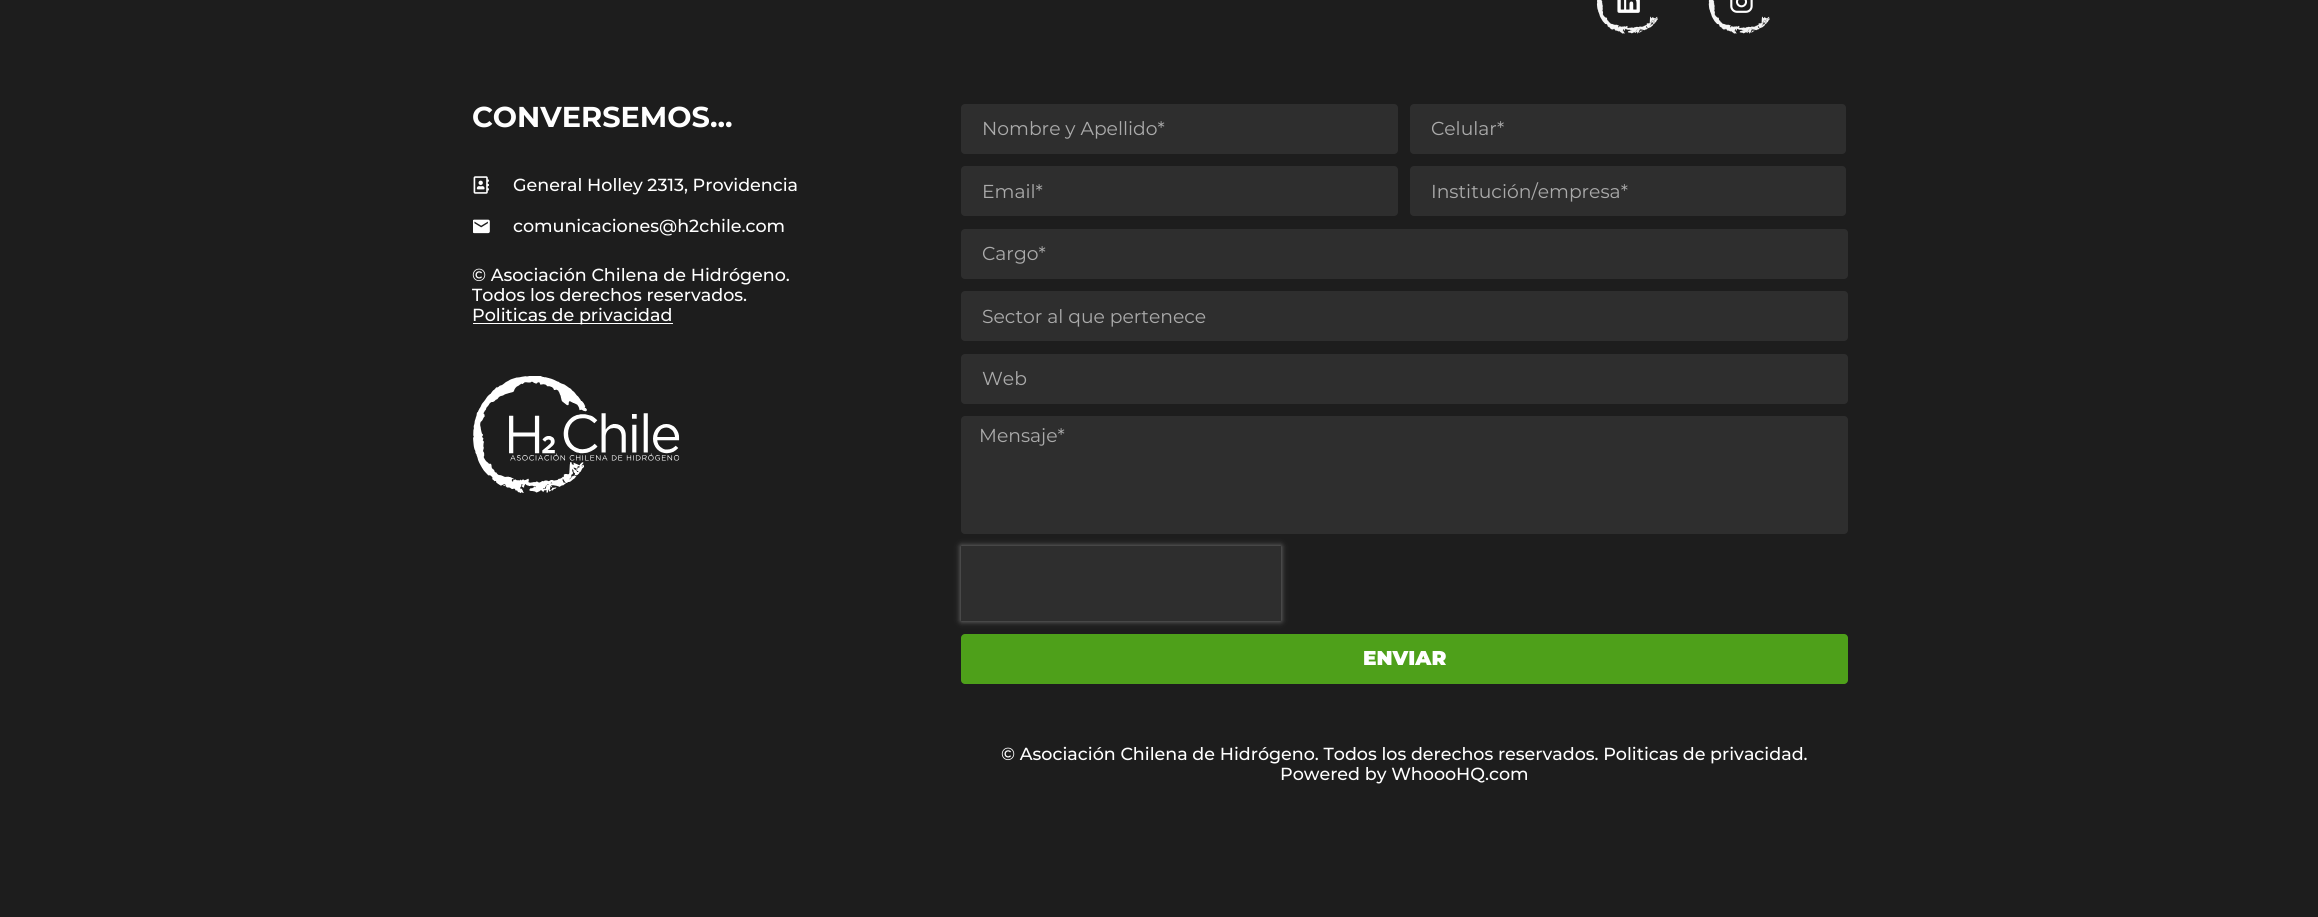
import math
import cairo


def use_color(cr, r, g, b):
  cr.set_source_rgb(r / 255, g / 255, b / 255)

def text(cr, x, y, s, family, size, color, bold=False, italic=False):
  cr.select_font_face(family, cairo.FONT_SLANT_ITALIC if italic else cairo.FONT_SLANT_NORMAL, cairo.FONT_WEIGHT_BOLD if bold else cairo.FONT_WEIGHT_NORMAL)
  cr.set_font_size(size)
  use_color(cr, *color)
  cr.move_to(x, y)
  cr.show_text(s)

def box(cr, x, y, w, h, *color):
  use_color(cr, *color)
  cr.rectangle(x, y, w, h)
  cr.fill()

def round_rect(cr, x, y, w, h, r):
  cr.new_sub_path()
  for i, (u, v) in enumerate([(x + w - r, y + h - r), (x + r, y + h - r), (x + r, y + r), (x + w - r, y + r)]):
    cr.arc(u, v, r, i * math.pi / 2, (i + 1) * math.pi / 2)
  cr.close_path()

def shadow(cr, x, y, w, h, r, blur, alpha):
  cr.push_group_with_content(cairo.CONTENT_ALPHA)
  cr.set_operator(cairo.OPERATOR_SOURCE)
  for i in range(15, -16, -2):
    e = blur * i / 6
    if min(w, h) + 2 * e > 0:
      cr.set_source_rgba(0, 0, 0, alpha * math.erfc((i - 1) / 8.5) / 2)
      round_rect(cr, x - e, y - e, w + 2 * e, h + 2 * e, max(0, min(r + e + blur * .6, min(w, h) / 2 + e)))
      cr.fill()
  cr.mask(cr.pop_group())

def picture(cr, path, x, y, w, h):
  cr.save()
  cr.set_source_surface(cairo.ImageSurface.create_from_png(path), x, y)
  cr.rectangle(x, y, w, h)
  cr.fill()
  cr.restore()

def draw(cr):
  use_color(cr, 29, 29, 29)
  cr.paint()
  picture(cr, "img_01.png", 1596, 0, 62, 34)
  picture(cr, "img_02.png", 1708, 0, 62, 34)
  picture(cr, "img_03.png", 473, 176, 16, 18)
  picture(cr, "img_04.png", 473, 219, 17, 15)
  box(cr, 473, 323, 200, 1, 255, 255, 255)
  picture(cr, "img_05.png", 473, 376, 207, 117)
  use_color(cr, 46, 46, 46)
  round_rect(cr, 961, 104, 437, 50, 4)
  cr.fill()
  round_rect(cr, 1410, 104, 436, 50, 4)
  cr.fill()
  round_rect(cr, 961, 166, 437, 50, 4)
  cr.fill()
  round_rect(cr, 1410, 166, 436, 50, 4)
  cr.fill()
  round_rect(cr, 961, 229, 887, 50, 4)
  cr.fill()
  round_rect(cr, 961, 291, 887, 50, 4)
  cr.fill()
  round_rect(cr, 961, 354, 887, 50, 4)
  cr.fill()
  round_rect(cr, 961, 416, 887, 118, 4)
  cr.fill()
  box(cr, 961, 546, 320, 75, 46, 46, 46)
  cr.save()
  cr.set_fill_rule(cairo.FILL_RULE_EVEN_ODD)
  cr.new_path()
  cr.move_to(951, 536)
  cr.line_to(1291, 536)
  cr.line_to(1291, 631)
  cr.line_to(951, 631)
  cr.close_path()
  cr.move_to(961, 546)
  cr.line_to(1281, 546)
  cr.line_to(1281, 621)
  cr.line_to(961, 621)
  cr.close_path()
  cr.clip()
  use_color(cr, 128, 128, 128)
  shadow(cr, 961, 546, 320, 75, 0, 3, 1)
  cr.restore()
  use_color(cr, 78, 160, 26)
  round_rect(cr, 961, 634, 887, 50, 4)
  cr.fill()
  text(cr, 472, 127, "CONVERSEMOS...", "Montserrat", 28.75, (255, 255, 255), bold=True)
  text(cr, 513, 191, "General Holley 2313, Providencia", "Montserrat Medium", 17.5, (255, 255, 255))
  text(cr, 513, 232, "comunicaciones@h2chile.com", "Montserrat Medium", 17.5, (255, 255, 255))
  text(cr, 472, 281, "© Asociación Chilena de Hidrógeno.", "Montserrat Medium", 17.5, (255, 255, 255))
  text(cr, 472, 301, "Todos los derechos reservados.", "Montserrat Medium", 17.5, (255, 255, 255))
  text(cr, 472, 321, "Politicas de privacidad", "Montserrat Medium", 17.5, (255, 255, 255))
  text(cr, 982, 135, "Nombre y Apellido*", "Montserrat", 18.75, (171, 171, 171))
  text(cr, 1431, 135, "Celular*", "Montserrat", 18.75, (171, 171, 171))
  text(cr, 982, 198, "Email*", "Montserrat", 18.75, (171, 171, 171))
  text(cr, 1431, 198, "Institución/empresa*", "Montserrat", 18.75, (171, 171, 171))
  text(cr, 982, 260, "Cargo*", "Montserrat", 18.75, (171, 171, 171))
  text(cr, 982, 323, "Sector al que pertenece", "Montserrat", 18.75, (171, 171, 171))
  text(cr, 982, 385, "Web", "Montserrat", 18.75, (171, 171, 171))
  text(cr, 979, 442, "Mensaje*", "Montserrat", 18.75, (171, 171, 171))
  text(cr, 1363, 665, "ENVIAR", "Montserrat Black", 20, (255, 255, 255))
  text(cr, 1001, 760, "© Asociación Chilena de Hidrógeno. Todos los derechos reservados. Politicas de privacidad.", "Montserrat Medium", 17.5, (255, 255, 255))
  text(cr, 1280, 780, "Powered by WhoooHQ.com", "Montserrat Medium", 17.5, (255, 255, 255))


surface = cairo.ImageSurface(cairo.FORMAT_RGB24, 2318, 917)
cr = cairo.Context(surface)
options = cairo.FontOptions()
options.set_hint_metrics(cairo.HINT_METRICS_OFF)
options.set_hint_style(cairo.HINT_STYLE_NONE)
cr.set_font_options(options)
cr.set_miter_limit(4)
draw(cr)
surface.write_to_png("out.png")
